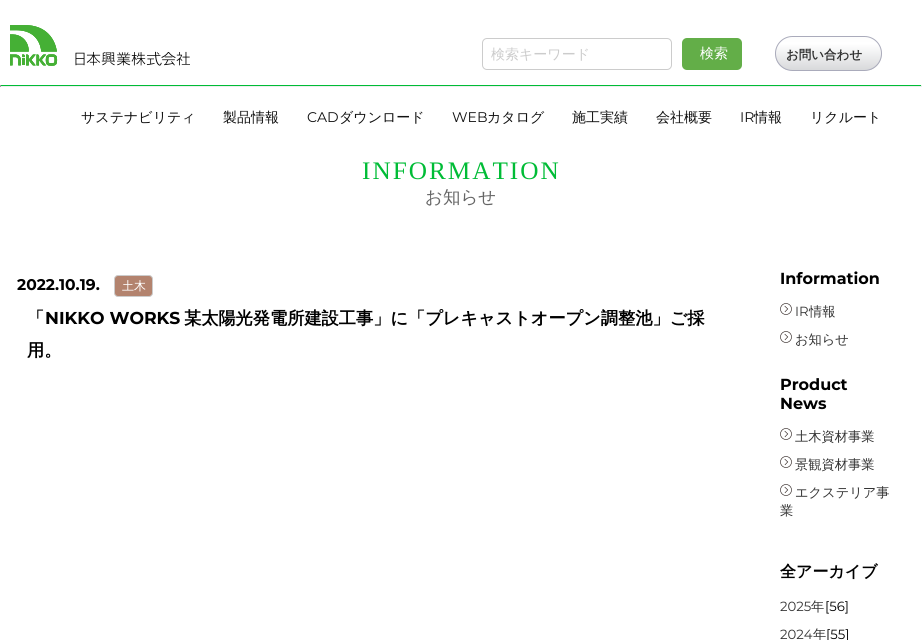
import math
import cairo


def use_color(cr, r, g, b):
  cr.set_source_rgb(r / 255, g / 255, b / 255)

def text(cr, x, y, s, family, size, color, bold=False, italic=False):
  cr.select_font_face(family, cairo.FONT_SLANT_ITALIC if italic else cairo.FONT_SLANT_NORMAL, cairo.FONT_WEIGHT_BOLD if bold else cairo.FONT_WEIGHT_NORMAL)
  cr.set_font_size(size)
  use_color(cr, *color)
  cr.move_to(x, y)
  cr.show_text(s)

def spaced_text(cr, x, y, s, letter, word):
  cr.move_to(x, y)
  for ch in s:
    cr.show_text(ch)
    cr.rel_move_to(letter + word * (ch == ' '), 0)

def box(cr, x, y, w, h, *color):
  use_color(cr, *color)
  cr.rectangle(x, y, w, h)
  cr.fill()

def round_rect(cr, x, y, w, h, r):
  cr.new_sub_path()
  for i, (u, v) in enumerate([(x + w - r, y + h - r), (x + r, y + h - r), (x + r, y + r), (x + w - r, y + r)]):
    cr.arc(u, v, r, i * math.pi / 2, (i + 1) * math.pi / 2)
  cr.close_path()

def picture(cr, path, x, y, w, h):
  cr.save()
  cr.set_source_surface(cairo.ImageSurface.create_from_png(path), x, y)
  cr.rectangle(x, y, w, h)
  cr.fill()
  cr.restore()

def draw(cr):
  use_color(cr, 255, 255, 255)
  cr.paint()
  picture(cr, "img_01.png", 10, 25, 180, 41)
  round_rect(cr, 482.5, 38.5, 189, 31, 4.5)
  use_color(cr, 204, 204, 204)
  cr.set_line_width(1)
  cr.stroke()
  use_color(cr, 99, 174, 72)
  round_rect(cr, 682, 38, 60, 32, 5)
  cr.fill()
  cr.save()
  round_rect(cr, 775, 36, 107, 35, 17.5)
  cr.clip()
  gradient = cairo.LinearGradient(829, 70, 829, 37)
  gradient.add_color_stop_rgba(0, 0.847, 0.851, 0.859, 1)
  gradient.add_color_stop_rgba(0.8, 1, 1, 1, 1)
  gradient.add_color_stop_rgba(1, 0.992, 0.992, 0.992, 1)
  cr.set_source(gradient)
  cr.rectangle(775, 37, 107, 33)
  cr.fill()
  cr.restore()
  round_rect(cr, 775.5, 36.5, 106, 34, 17)
  use_color(cr, 170, 171, 187)
  cr.stroke()
  box(cr, 0, 85, 922, 1, 0, 188, 54)
  box(cr, 921, 85, 1, 2, 238, 238, 238)
  box(cr, 0, 86, 922, 1, 238, 238, 238)
  box(cr, 0, 85, 1, 2, 159, 159, 159)
  use_color(cr, 179, 131, 110)
  round_rect(cr, 114.5, 275.5, 38, 21, 3.5)
  cr.fill_preserve()
  use_color(cr, 204, 204, 204)
  cr.stroke()
  picture(cr, "img_02.png", 780, 303, 12, 12)
  picture(cr, "img_02.png", 780, 331, 12, 12)
  picture(cr, "img_02.png", 780, 428, 12, 12)
  picture(cr, "img_02.png", 780, 456, 12, 12)
  picture(cr, "img_02.png", 780, 484, 12, 12)
  text(cr, 491, 59, "検索キーワード", "WenQuanYi Zen Hei Medium", 14, (204, 204, 204))
  text(cr, 700, 58, "検索", "WenQuanYi Zen Hei Medium", 14, (255, 255, 255))
  text(cr, 786, 59, "お問い合わせ", "WenQuanYi Zen Hei", 12.5, (51, 51, 51), bold=True)
  text(cr, 81, 122, "サステナビリティ", "WenQuanYi Zen Hei Medium", 14, (17, 17, 17))
  text(cr, 223, 122, "製品情報", "WenQuanYi Zen Hei Medium", 14, (17, 17, 17))
  text(cr, 307, 122, "CAD", "Montserrat", 14, (17, 17, 17))
  text(cr, 339, 122, "ダウンロード", "WenQuanYi Zen Hei Medium", 14, (17, 17, 17))
  text(cr, 452, 122, "WEB", "Montserrat", 14, (17, 17, 17))
  text(cr, 487, 122, "カタログ", "WenQuanYi Zen Hei Medium", 14, (17, 17, 17))
  text(cr, 572, 122, "施工実績", "WenQuanYi Zen Hei Medium", 14, (17, 17, 17))
  text(cr, 656, 122, "会社概要", "WenQuanYi Zen Hei Medium", 14, (17, 17, 17))
  text(cr, 740, 122, "IR", "Montserrat", 14, (17, 17, 17))
  text(cr, 754, 122, "情報", "WenQuanYi Zen Hei Medium", 14, (17, 17, 17))
  text(cr, 810, 122, "リクルート", "WenQuanYi Zen Hei Medium", 14, (17, 17, 17))
  cr.select_font_face("Liberation Serif")
  cr.set_font_size(25.25)
  use_color(cr, 0, 188, 54)
  spaced_text(cr, 362, 179, "INFORMATION", 2, 0)
  text(cr, 425, 203, "お知らせ", "WenQuanYi Zen Hei Medium", 17.5, (102, 102, 102))
  text(cr, 17, 290, "2022.10.19.", "Montserrat", 15.5, (0, 0, 0), bold=True)
  text(cr, 122, 290, "土木", "WenQuanYi Zen Hei Medium", 12, (255, 255, 255))
  text(cr, 27, 324, "「", "WenQuanYi Zen Hei", 17.2, (0, 0, 0), bold=True)
  text(cr, 45, 324, "NIKKO WORKS", "Montserrat", 17.2, (0, 0, 0), bold=True)
  text(cr, 184, 324, "某太陽光発電所建設工事」に「プレキャストオープン調整池」ご採", "WenQuanYi Zen Hei", 17.2, (0, 0, 0), bold=True)
  text(cr, 27, 356, "用。", "WenQuanYi Zen Hei", 17.2, (0, 0, 0), bold=True)
  text(cr, 780, 284, "Information", "Montserrat", 16, (0, 0, 0), bold=True)
  text(cr, 795, 316, "IR", "Montserrat", 13.25, (51, 51, 51))
  text(cr, 809, 316, "情報", "WenQuanYi Zen Hei Medium", 13.25, (51, 51, 51))
  text(cr, 795, 344, "お知らせ", "WenQuanYi Zen Hei Medium", 13.25, (51, 51, 51))
  text(cr, 780, 390, "Product", "Montserrat", 16, (0, 0, 0), bold=True)
  text(cr, 780, 409, "News", "Montserrat", 16, (0, 0, 0), bold=True)
  text(cr, 795, 441, "土木資材事業", "WenQuanYi Zen Hei Medium", 13.25, (51, 51, 51))
  text(cr, 795, 469, "景観資材事業", "WenQuanYi Zen Hei Medium", 13.25, (51, 51, 51))
  text(cr, 795, 497, "エクステリア事", "WenQuanYi Zen Hei Medium", 13.25, (51, 51, 51))
  text(cr, 780, 515, "業", "WenQuanYi Zen Hei Medium", 13.25, (51, 51, 51))
  text(cr, 780, 577, "全アーカイブ", "WenQuanYi Zen Hei", 16, (0, 0, 0), bold=True)
  text(cr, 780, 611, "2025", "Montserrat", 13.25, (51, 51, 51))
  text(cr, 811, 611, "年", "WenQuanYi Zen Hei Medium", 13.25, (51, 51, 51))
  text(cr, 825, 611, "[56]", "Montserrat", 13.25, (0, 0, 0))
  text(cr, 780, 639, "2024", "Montserrat", 13.25, (51, 51, 51))
  text(cr, 813, 639, "年", "WenQuanYi Zen Hei Medium", 13.25, (51, 51, 51))
  text(cr, 826, 639, "[55]", "Montserrat", 13.25, (0, 0, 0))


surface = cairo.ImageSurface(cairo.FORMAT_RGB24, 922, 640)
cr = cairo.Context(surface)
options = cairo.FontOptions()
options.set_hint_metrics(cairo.HINT_METRICS_OFF)
options.set_hint_style(cairo.HINT_STYLE_NONE)
cr.set_font_options(options)
cr.set_miter_limit(4)
draw(cr)
surface.write_to_png("out.png")
